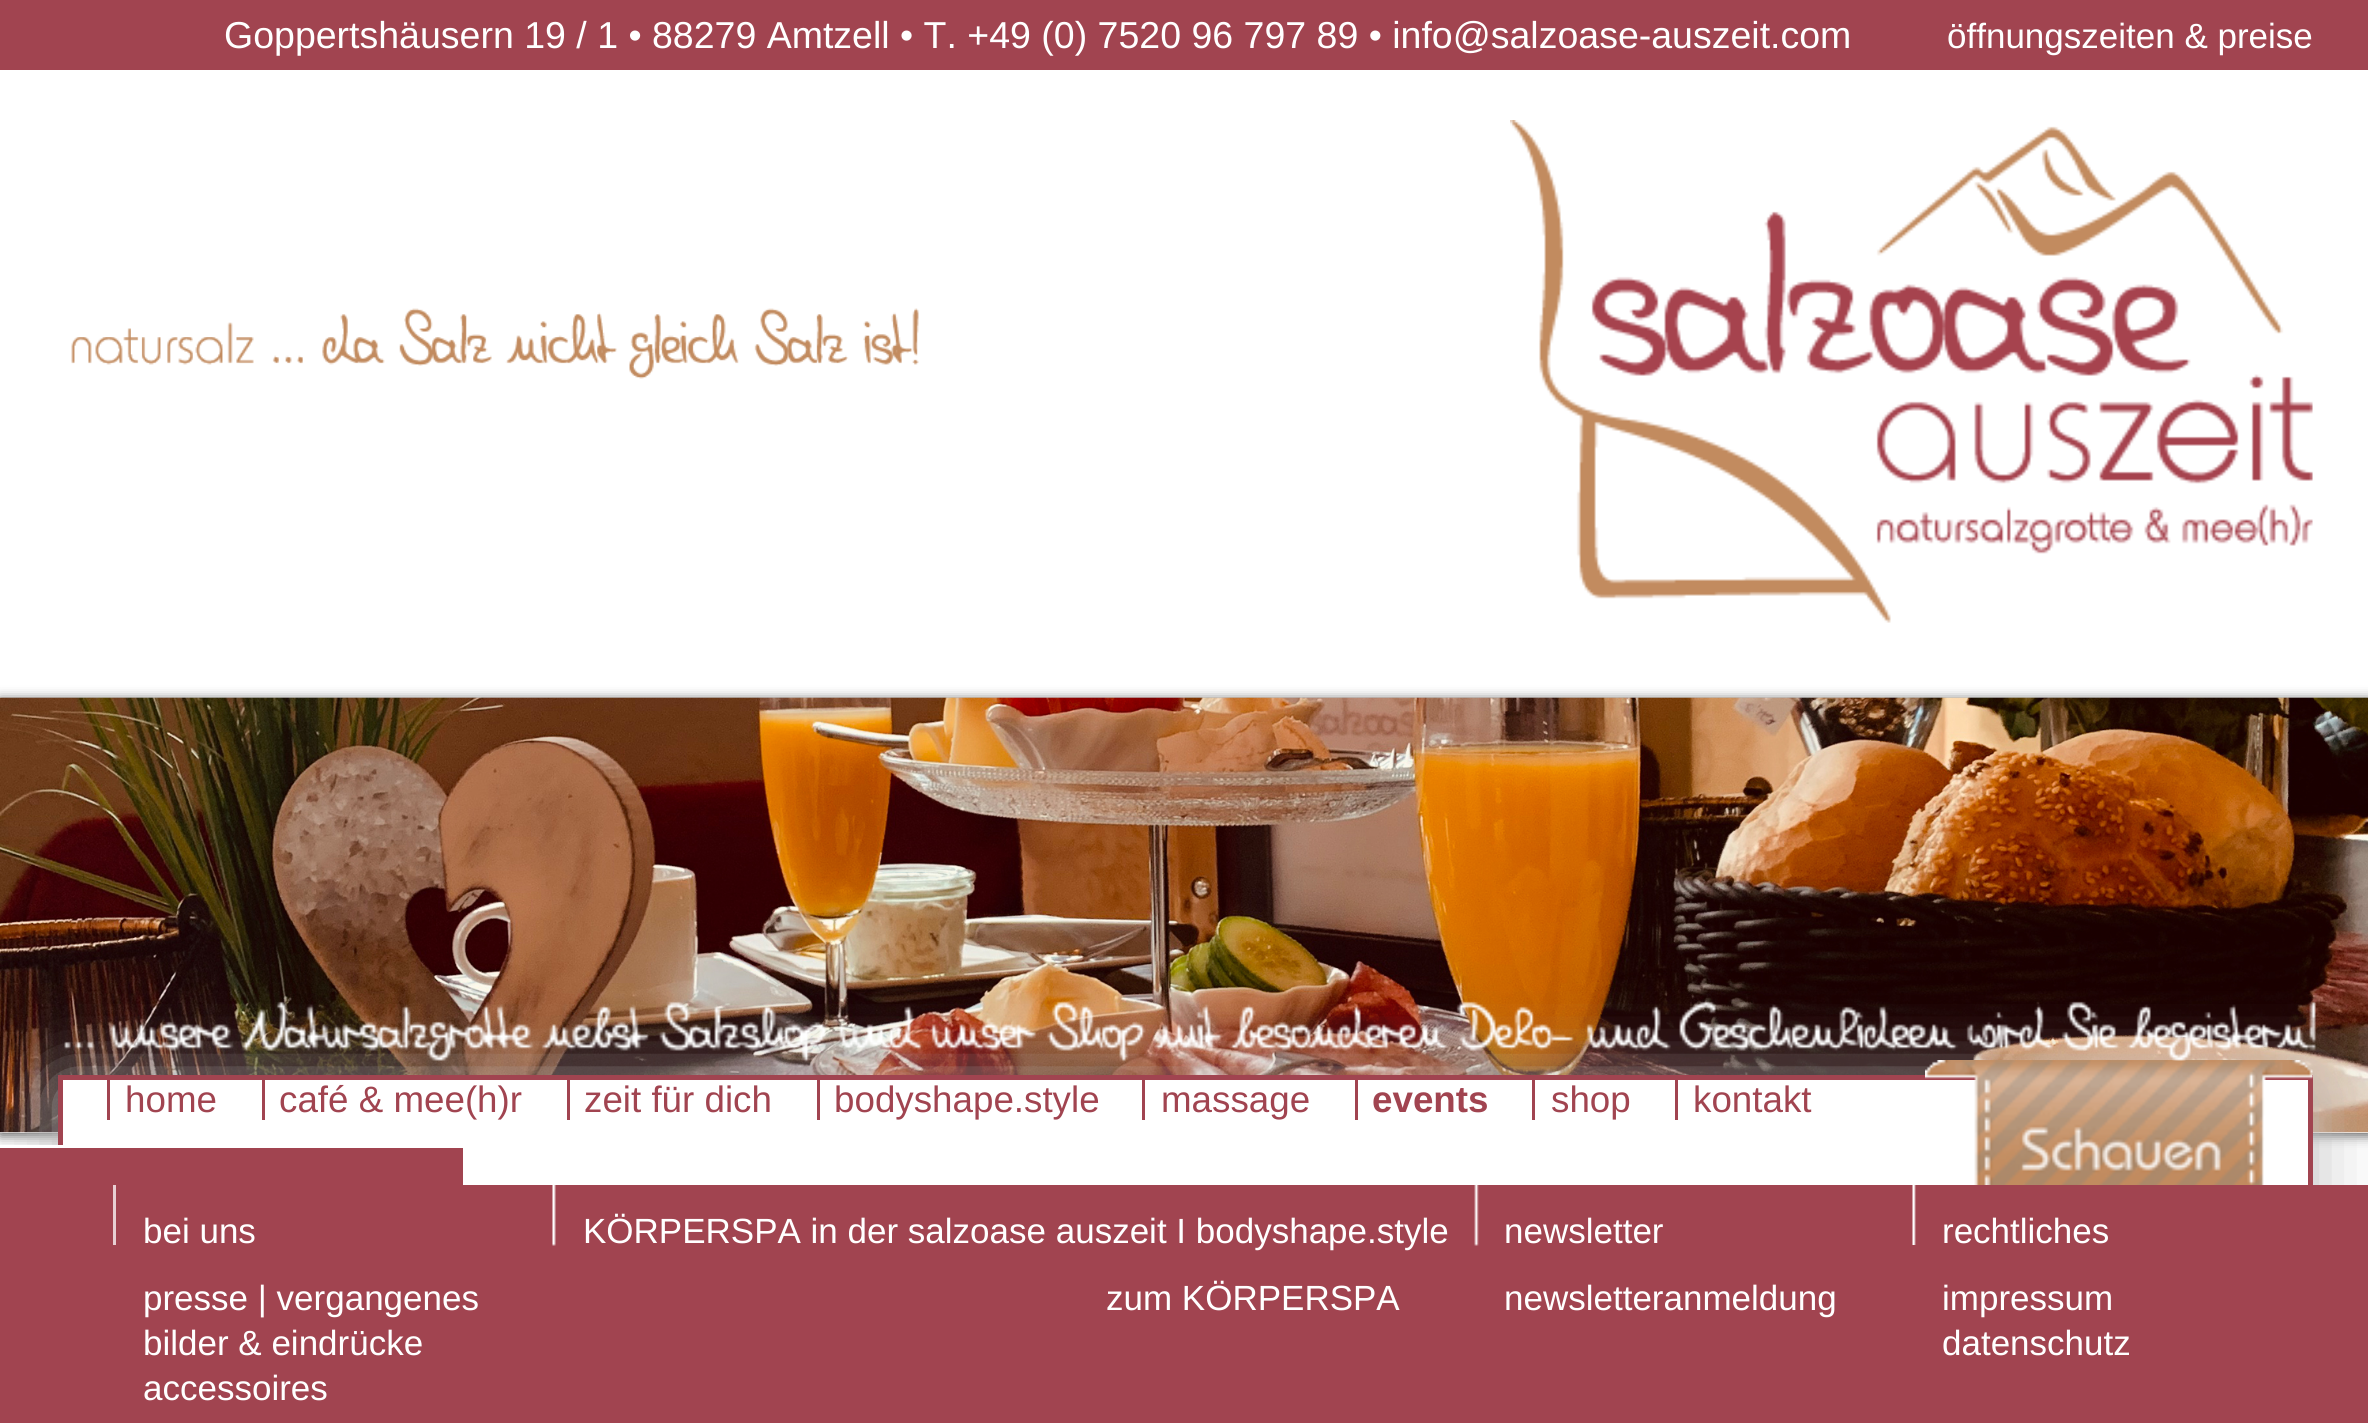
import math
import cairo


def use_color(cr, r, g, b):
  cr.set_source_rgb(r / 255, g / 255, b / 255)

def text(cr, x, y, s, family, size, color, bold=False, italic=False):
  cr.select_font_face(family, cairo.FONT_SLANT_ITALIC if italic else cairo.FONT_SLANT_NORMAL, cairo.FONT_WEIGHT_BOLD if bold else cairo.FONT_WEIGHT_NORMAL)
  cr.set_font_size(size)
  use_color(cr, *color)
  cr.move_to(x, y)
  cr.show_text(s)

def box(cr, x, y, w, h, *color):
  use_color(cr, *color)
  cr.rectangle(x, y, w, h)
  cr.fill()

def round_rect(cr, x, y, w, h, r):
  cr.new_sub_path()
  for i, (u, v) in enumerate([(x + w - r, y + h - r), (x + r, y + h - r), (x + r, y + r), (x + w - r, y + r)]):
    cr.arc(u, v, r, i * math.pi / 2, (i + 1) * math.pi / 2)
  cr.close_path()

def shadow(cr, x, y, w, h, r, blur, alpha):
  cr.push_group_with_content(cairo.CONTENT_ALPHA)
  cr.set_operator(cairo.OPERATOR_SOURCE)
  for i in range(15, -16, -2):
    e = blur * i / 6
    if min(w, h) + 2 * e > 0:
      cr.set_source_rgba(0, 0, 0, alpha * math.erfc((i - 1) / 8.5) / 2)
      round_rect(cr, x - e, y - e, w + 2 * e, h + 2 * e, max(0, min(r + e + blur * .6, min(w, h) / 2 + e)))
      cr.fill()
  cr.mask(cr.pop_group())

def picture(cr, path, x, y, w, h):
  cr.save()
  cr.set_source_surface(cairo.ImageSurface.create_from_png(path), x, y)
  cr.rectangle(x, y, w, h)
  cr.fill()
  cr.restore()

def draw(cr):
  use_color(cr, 255, 255, 255)
  cr.paint()
  box(cr, 0, 0, 2368, 70, 161, 68, 80)
  picture(cr, "img_01.png", 71, 308, 848, 71)
  picture(cr, "img_02.png", 1510, 120, 803, 503)
  use_color(cr, 74, 74, 74)
  shadow(cr, 0, 700, 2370, 435, 0, 6, 1)
  box(cr, 0, 1132, 2368, 1, 255, 255, 255)
  picture(cr, "img_03.png", 0, 697, 2368, 436)
  use_color(cr, 187, 187, 187)
  shadow(cr, 58, 1085, 2255, 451, 0, 37.5, 1)
  box(cr, 63, 1080, 2245, 105, 255, 255, 255)
  cr.rectangle(60.5, 1077.5, 2250, 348)
  use_color(cr, 161, 68, 80)
  cr.set_line_width(5)
  cr.stroke()
  picture(cr, "img_05.png", 1925, 1060, 388, 125)
  picture(cr, "img_04.png", 64, 1001, 2252, 62)
  box(cr, 107, 1080, 3, 40, 161, 68, 80)
  box(cr, 262, 1080, 3, 40, 161, 68, 80)
  box(cr, 567, 1080, 3, 40, 161, 68, 80)
  box(cr, 817, 1080, 3, 40, 161, 68, 80)
  box(cr, 1142, 1080, 3, 40, 161, 68, 80)
  box(cr, 0, 1148, 463, 37, 161, 68, 80)
  box(cr, 1355, 1080, 3, 40, 161, 68, 80)
  box(cr, 1532, 1080, 3, 40, 161, 68, 80)
  box(cr, 1675, 1080, 3, 40, 161, 68, 80)
  box(cr, 0, 1145, 63, 3, 255, 255, 255)
  box(cr, 0, 1185, 2368, 238, 161, 68, 80)
  box(cr, 113, 1185, 3, 60, 232, 208, 211)
  picture(cr, "img_06.png", 552, 1185, 4, 61)
  picture(cr, "img_07.png", 1474, 1185, 5, 61)
  picture(cr, "img_08.png", 1912, 1185, 4, 60)
  text(cr, 224, 48, "Goppertshäusern 19 / 1 • 88279 Amtzell • T. +49 (0) 7520 96 797 89 • info@salzoase-auszeit.com", "Liberation Sans", 37.5, (255, 255, 255))
  text(cr, 1947, 48, "öffnungszeiten & preise", "Liberation Sans", 35, (255, 255, 255))
  text(cr, 125, 1112, "home", "Liberation Sans", 36.75, (161, 68, 80))
  text(cr, 279, 1112, "café & mee(h)r", "Liberation Sans", 36.75, (161, 68, 80))
  text(cr, 584, 1112, "zeit für dich", "Liberation Sans", 36.75, (161, 68, 80))
  text(cr, 834, 1112, "bodyshape.style", "Liberation Sans", 36.75, (161, 68, 80))
  text(cr, 1161, 1112, "massage", "Liberation Sans", 36.75, (161, 68, 80))
  text(cr, 1372, 1112, "events", "Liberation Sans", 36.75, (161, 68, 80), bold=True)
  text(cr, 1551, 1112, "shop", "Liberation Sans", 36.75, (161, 68, 80))
  text(cr, 1693, 1112, "kontakt", "Liberation Sans", 36.75, (161, 68, 80))
  text(cr, 143, 1243, "bei uns", "Liberation Sans", 35, (255, 255, 255))
  text(cr, 143, 1310, "presse | vergangenes", "Liberation Sans", 35, (255, 255, 255))
  text(cr, 143, 1355, "bilder & eindrücke", "Liberation Sans", 35, (255, 255, 255))
  text(cr, 143, 1400, "accessoires", "Liberation Sans", 35, (255, 255, 255))
  text(cr, 583, 1243, "KÖRPERSPA in der salzoase auszeit I bodyshape.style", "Liberation Sans", 35, (255, 255, 255))
  text(cr, 1106, 1310, "zum KÖRPERSPA", "Liberation Sans", 35, (255, 255, 255))
  text(cr, 1504, 1243, "newsletter", "Liberation Sans", 35, (255, 255, 255))
  text(cr, 1504, 1310, "newsletteranmeldung", "Liberation Sans", 35, (255, 255, 255))
  text(cr, 1942, 1243, "rechtliches", "Liberation Sans", 35, (255, 255, 255))
  text(cr, 1942, 1310, "impressum", "Liberation Sans", 35, (255, 255, 255))
  text(cr, 1942, 1355, "datenschutz", "Liberation Sans", 35, (255, 255, 255))


surface = cairo.ImageSurface(cairo.FORMAT_RGB24, 2368, 1423)
cr = cairo.Context(surface)
options = cairo.FontOptions()
options.set_hint_metrics(cairo.HINT_METRICS_OFF)
options.set_hint_style(cairo.HINT_STYLE_NONE)
cr.set_font_options(options)
cr.set_miter_limit(4)
draw(cr)
surface.write_to_png("out.png")
